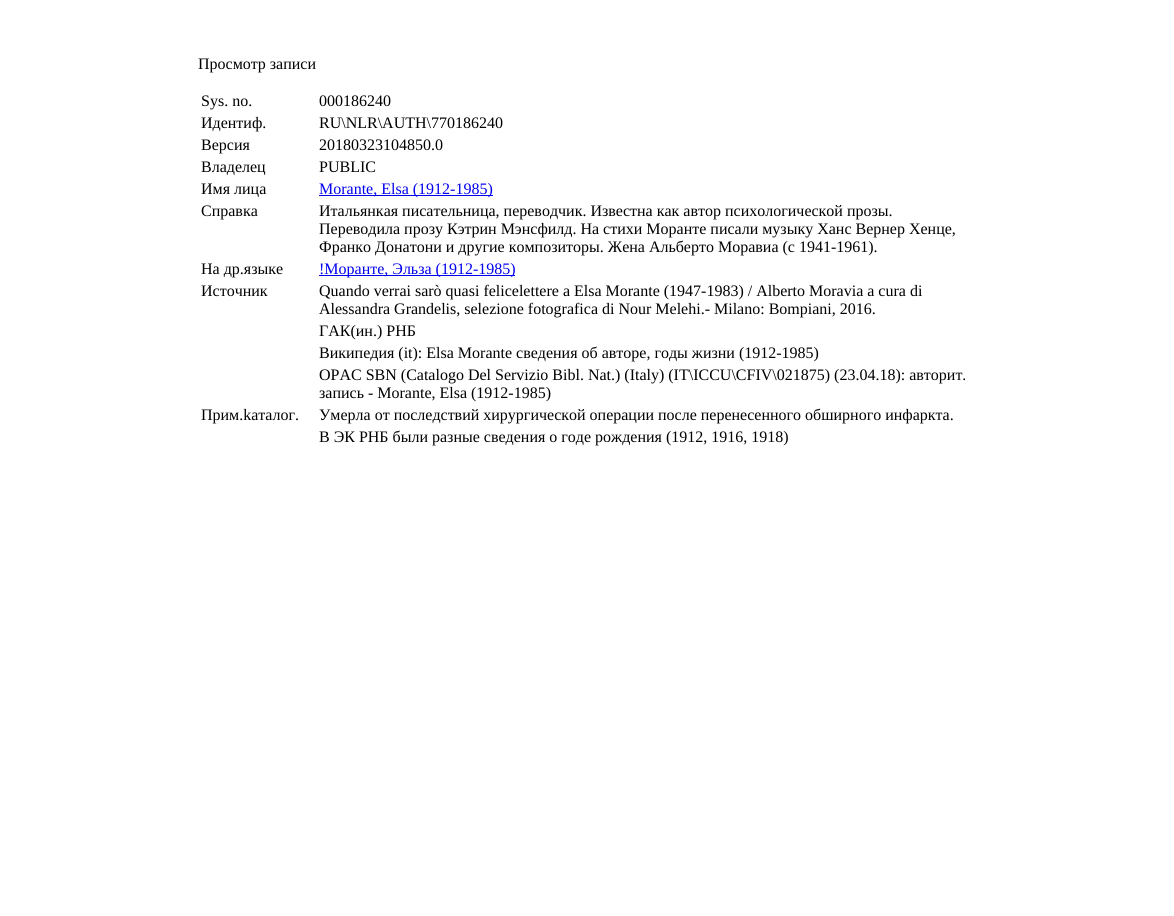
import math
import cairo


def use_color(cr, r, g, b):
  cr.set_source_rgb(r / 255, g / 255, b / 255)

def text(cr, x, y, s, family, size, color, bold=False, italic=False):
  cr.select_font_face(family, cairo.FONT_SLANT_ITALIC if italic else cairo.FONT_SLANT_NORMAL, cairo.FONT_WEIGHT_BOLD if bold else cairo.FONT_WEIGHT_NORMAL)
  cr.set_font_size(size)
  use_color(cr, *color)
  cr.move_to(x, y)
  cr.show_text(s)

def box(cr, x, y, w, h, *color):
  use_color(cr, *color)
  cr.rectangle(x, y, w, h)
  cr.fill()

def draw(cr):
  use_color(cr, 255, 255, 255)
  cr.paint()
  box(cr, 319, 195, 174, 1, 0, 0, 238)
  box(cr, 319, 275, 196, 1, 0, 0, 238)
  text(cr, 198, 69, "Просмотр записи", "Liberation Serif", 16, (0, 0, 0))
  text(cr, 201, 106, "Sys. no.", "Liberation Serif", 16, (0, 0, 0))
  text(cr, 319, 106, "000186240", "Liberation Serif", 16, (0, 0, 0))
  text(cr, 201, 128, "Идeнтиф.", "Liberation Serif", 16, (0, 0, 0))
  text(cr, 319, 128, "RU\\NLR\\AUTH\\770186240", "Liberation Serif", 16, (0, 0, 0))
  text(cr, 201, 150, "Версия", "Liberation Serif", 16, (0, 0, 0))
  text(cr, 319, 150, "20180323104850.0", "Liberation Serif", 16, (0, 0, 0))
  text(cr, 201, 172, "Bлaдeлeц", "Liberation Serif", 16, (0, 0, 0))
  text(cr, 319, 172, "PUBLIC", "Liberation Serif", 16, (0, 0, 0))
  text(cr, 201, 194, "Имя лица", "Liberation Serif", 16, (0, 0, 0))
  text(cr, 319, 194, "Morante, Elsa (1912-1985)", "Liberation Serif", 16, (0, 0, 238))
  text(cr, 201, 216, "Справка", "Liberation Serif", 16, (0, 0, 0))
  text(cr, 319, 216, "Итальянкая писательница, переводчик. Известна как автор психологической прозы.", "Liberation Serif", 16, (0, 0, 0))
  text(cr, 319, 234, "Переводила прозу Кэтрин Мэнсфилд. На стихи Моранте писали музыку Ханс Вернер Хенце,", "Liberation Serif", 16, (0, 0, 0))
  text(cr, 319, 252, "Франко Донатони и другие композиторы. Жена Альберто Моравиа (с 1941-1961).", "Liberation Serif", 16, (0, 0, 0))
  text(cr, 201, 274, "Ha дp.языкe", "Liberation Serif", 16, (0, 0, 0))
  text(cr, 319, 274, "!Моранте, Эльза (1912-1985)", "Liberation Serif", 16, (0, 0, 238))
  text(cr, 201, 296, "Источник", "Liberation Serif", 16, (0, 0, 0))
  text(cr, 319, 296, "Quando verrai sarò quasi felicelettere a Elsa Morante (1947-1983) / Alberto Moravia a cura di", "Liberation Serif", 16, (0, 0, 0))
  text(cr, 319, 314, "Alessandra Grandelis, selezione fotografica di Nour Melehi.- Milano: Bompiani, 2016.", "Liberation Serif", 16, (0, 0, 0))
  text(cr, 319, 336, "ГАК(ин.) РНБ", "Liberation Serif", 16, (0, 0, 0))
  text(cr, 319, 358, "Википедия (it): Elsa Morante сведения об авторе, годы жизни (1912-1985)", "Liberation Serif", 16, (0, 0, 0))
  text(cr, 319, 380, "OPAC SBN (Catalogo Del Servizio Bibl. Nat.) (Italy) (IT\\ICCU\\CFIV\\021875) (23.04.18): авторит.", "Liberation Serif", 16, (0, 0, 0))
  text(cr, 319, 398, "запись - Morante, Elsa (1912-1985)", "Liberation Serif", 16, (0, 0, 0))
  text(cr, 201, 420, "Пpим.kaтaлoг.", "Liberation Serif", 16, (0, 0, 0))
  text(cr, 319, 420, "Умерла от последствий хирургической операции после перенесенного обширного инфаркта.", "Liberation Serif", 16, (0, 0, 0))
  text(cr, 319, 442, "В ЭК РНБ были разные сведения о годе рождения (1912, 1916, 1918)", "Liberation Serif", 16, (0, 0, 0))


surface = cairo.ImageSurface(cairo.FORMAT_RGB24, 1174, 916)
cr = cairo.Context(surface)
options = cairo.FontOptions()
options.set_hint_metrics(cairo.HINT_METRICS_OFF)
options.set_hint_style(cairo.HINT_STYLE_NONE)
cr.set_font_options(options)
cr.set_miter_limit(4)
draw(cr)
surface.write_to_png("out.png")
